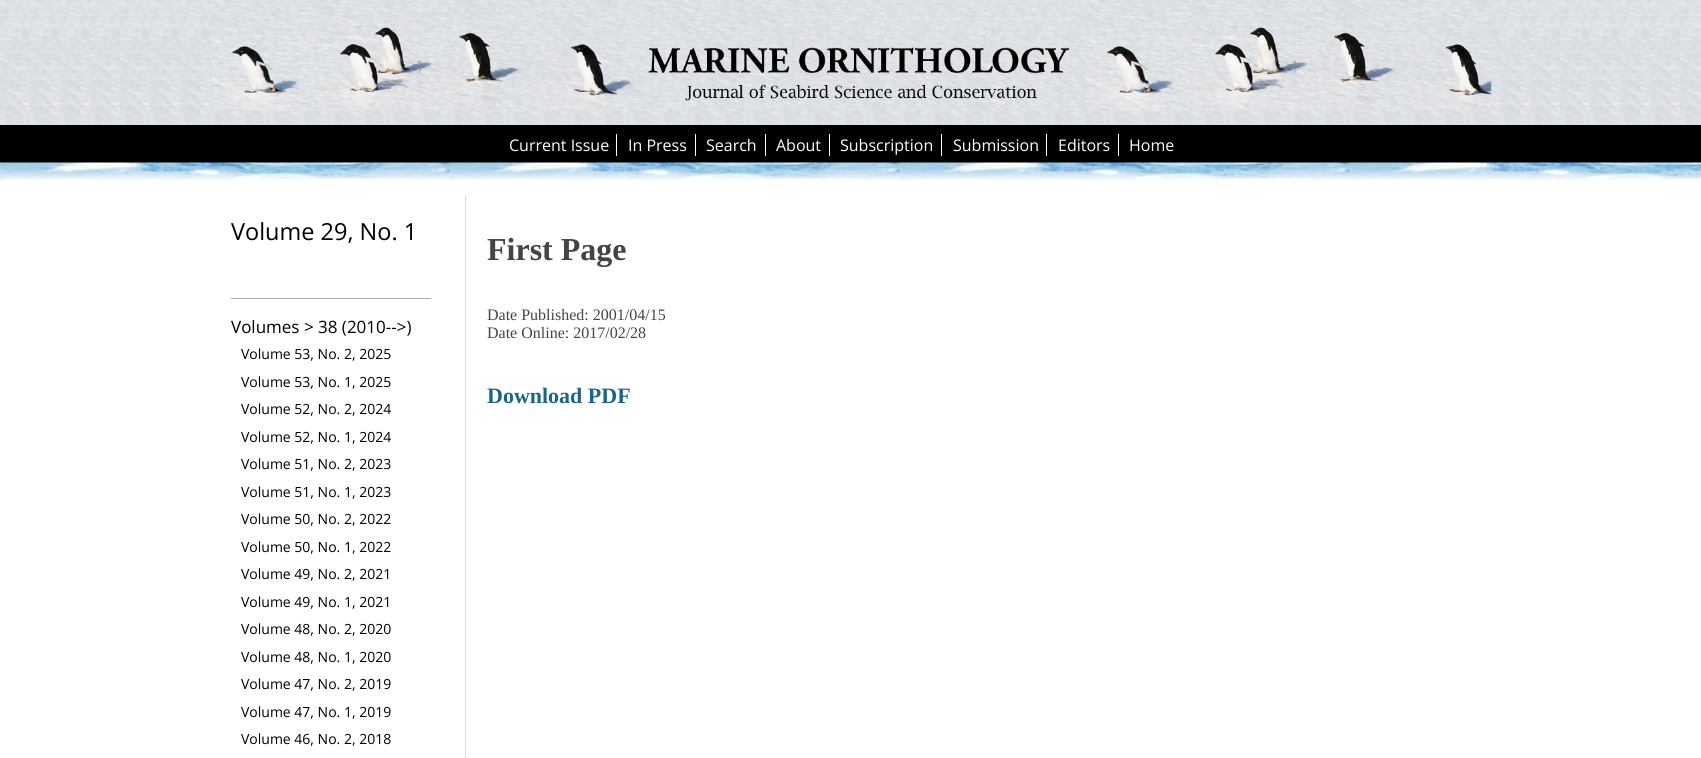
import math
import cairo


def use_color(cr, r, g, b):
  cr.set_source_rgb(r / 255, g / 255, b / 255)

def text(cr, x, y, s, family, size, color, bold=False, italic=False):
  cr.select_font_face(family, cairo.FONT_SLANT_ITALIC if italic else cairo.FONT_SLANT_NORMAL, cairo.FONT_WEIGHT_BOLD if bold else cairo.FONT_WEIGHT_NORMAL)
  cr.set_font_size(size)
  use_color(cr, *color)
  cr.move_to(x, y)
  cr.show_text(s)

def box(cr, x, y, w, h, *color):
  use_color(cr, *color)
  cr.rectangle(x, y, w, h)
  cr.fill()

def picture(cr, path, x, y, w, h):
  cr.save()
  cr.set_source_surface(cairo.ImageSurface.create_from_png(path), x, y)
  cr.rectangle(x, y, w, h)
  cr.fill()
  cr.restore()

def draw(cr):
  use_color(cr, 255, 255, 255)
  cr.paint()
  picture(cr, "img_01.png", 0, 0, 1701, 125)
  box(cr, 0, 125, 1701, 38, 0, 0, 0)
  picture(cr, "img_02.png", 211, 0, 1281, 112)
  box(cr, 616, 134, 1, 22, 255, 255, 255)
  box(cr, 695, 134, 1, 22, 255, 255, 255)
  box(cr, 765, 134, 1, 22, 255, 255, 255)
  box(cr, 829, 134, 1, 22, 255, 255, 255)
  box(cr, 941, 134, 1, 22, 255, 255, 255)
  box(cr, 1046, 134, 1, 22, 255, 255, 255)
  box(cr, 1118, 134, 1, 22, 255, 255, 255)
  picture(cr, "img_03.png", 0, 162, 1701, 18)
  box(cr, 465, 195, 1, 563, 221, 221, 221)
  box(cr, 231, 298, 200, 1, 170, 170, 170)
  text(cr, 509, 151, "Current Issue", "Open Sans", 16, (255, 255, 255))
  text(cr, 628, 151, "In Press", "Open Sans", 16, (255, 255, 255))
  text(cr, 706, 151, "Search", "Open Sans", 16, (255, 255, 255))
  text(cr, 776, 151, "About", "Open Sans", 16, (255, 255, 255))
  text(cr, 840, 151, "Subscription", "Open Sans", 16, (255, 255, 255))
  text(cr, 953, 151, "Submission", "Open Sans", 16, (255, 255, 255))
  text(cr, 1058, 151, "Editors", "Open Sans", 16, (255, 255, 255))
  text(cr, 1129, 151, "Home", "Open Sans", 16, (255, 255, 255))
  text(cr, 231, 240, "Volume 29, No. 1", "Open Sans", 23.5, (0, 0, 0))
  text(cr, 231, 333, "Volumes > 38 (2010-->)", "Open Sans", 17, (0, 0, 0))
  text(cr, 241, 359, "Volume 53, No. 2, 2025", "Open Sans", 14, (0, 0, 0))
  text(cr, 241, 387, "Volume 53, No. 1, 2025", "Open Sans", 14, (0, 0, 0))
  text(cr, 241, 414, "Volume 52, No. 2, 2024", "Open Sans", 14, (0, 0, 0))
  text(cr, 241, 442, "Volume 52, No. 1, 2024", "Open Sans", 14, (0, 0, 0))
  text(cr, 241, 469, "Volume 51, No. 2, 2023", "Open Sans", 14, (0, 0, 0))
  text(cr, 241, 497, "Volume 51, No. 1, 2023", "Open Sans", 14, (0, 0, 0))
  text(cr, 241, 524, "Volume 50, No. 2, 2022", "Open Sans", 14, (0, 0, 0))
  text(cr, 241, 552, "Volume 50, No. 1, 2022", "Open Sans", 14, (0, 0, 0))
  text(cr, 241, 579, "Volume 49, No. 2, 2021", "Open Sans", 14, (0, 0, 0))
  text(cr, 241, 607, "Volume 49, No. 1, 2021", "Open Sans", 14, (0, 0, 0))
  text(cr, 241, 634, "Volume 48, No. 2, 2020", "Open Sans", 14, (0, 0, 0))
  text(cr, 241, 662, "Volume 48, No. 1, 2020", "Open Sans", 14, (0, 0, 0))
  text(cr, 241, 689, "Volume 47, No. 2, 2019", "Open Sans", 14, (0, 0, 0))
  text(cr, 241, 717, "Volume 47, No. 1, 2019", "Open Sans", 14, (0, 0, 0))
  text(cr, 241, 744, "Volume 46, No. 2, 2018", "Open Sans", 14, (0, 0, 0))
  text(cr, 487, 260, "First Page", "Liberation Serif", 32, (68, 68, 68), bold=True)
  text(cr, 487, 320, "Date Published: 2001/04/15", "Liberation Serif", 16, (68, 68, 68))
  text(cr, 487, 338, "Date Online: 2017/02/28", "Liberation Serif", 16, (68, 68, 68))
  text(cr, 487, 403, "Download PDF", "Liberation Serif", 22, (28, 100, 137), bold=True)


surface = cairo.ImageSurface(cairo.FORMAT_RGB24, 1701, 758)
cr = cairo.Context(surface)
options = cairo.FontOptions()
options.set_hint_metrics(cairo.HINT_METRICS_OFF)
options.set_hint_style(cairo.HINT_STYLE_NONE)
cr.set_font_options(options)
cr.set_miter_limit(4)
draw(cr)
surface.write_to_png("out.png")
